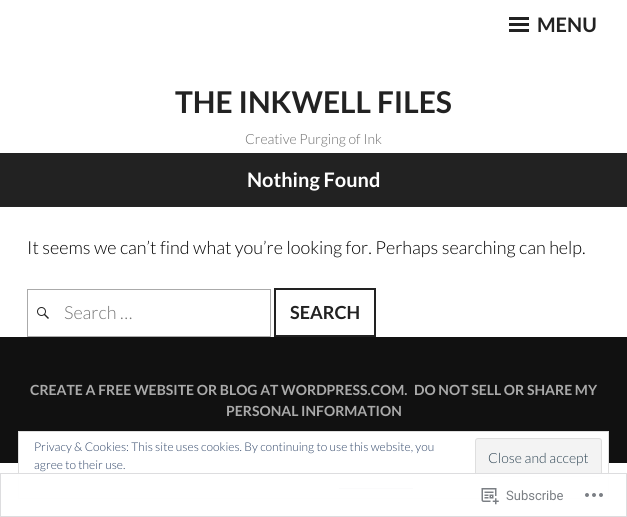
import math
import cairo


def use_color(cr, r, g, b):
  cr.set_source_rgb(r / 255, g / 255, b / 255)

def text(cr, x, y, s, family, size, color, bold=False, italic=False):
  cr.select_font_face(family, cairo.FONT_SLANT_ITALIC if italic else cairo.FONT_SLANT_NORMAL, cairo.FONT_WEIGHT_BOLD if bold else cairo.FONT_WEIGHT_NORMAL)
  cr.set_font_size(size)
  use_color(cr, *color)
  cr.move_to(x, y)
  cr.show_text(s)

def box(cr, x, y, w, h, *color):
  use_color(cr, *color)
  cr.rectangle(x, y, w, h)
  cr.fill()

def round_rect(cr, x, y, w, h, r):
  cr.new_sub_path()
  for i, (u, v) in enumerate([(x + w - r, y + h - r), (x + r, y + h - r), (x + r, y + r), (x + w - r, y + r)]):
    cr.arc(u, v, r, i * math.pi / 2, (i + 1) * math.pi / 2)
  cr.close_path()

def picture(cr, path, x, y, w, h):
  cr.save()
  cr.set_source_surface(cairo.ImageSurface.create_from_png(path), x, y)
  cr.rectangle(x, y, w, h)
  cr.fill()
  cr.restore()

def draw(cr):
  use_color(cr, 255, 255, 255)
  cr.paint()
  box(cr, 509, 23, 20, 3, 34, 34, 34)
  box(cr, 509, 17, 20, 3, 34, 34, 34)
  box(cr, 509, 29, 20, 3, 34, 34, 34)
  box(cr, 0, 153, 627, 53, 34, 34, 34)
  box(cr, 0, 206, 627, 1, 37, 37, 37)
  cr.rectangle(27.5, 289.5, 243, 47)
  use_color(cr, 170, 170, 170)
  cr.set_line_width(1)
  cr.stroke()
  picture(cr, "img_01.png", 37, 307, 12, 12)
  cr.rectangle(275, 289, 100, 47)
  use_color(cr, 34, 34, 34)
  cr.set_line_width(2)
  cr.stroke()
  box(cr, 0, 337, 627, 126, 17, 17, 17)
  box(cr, 19, 432, 589, 31, 255, 255, 255)
  cr.rectangle(18.5, 431.5, 590, 67)
  use_color(cr, 222, 222, 222)
  cr.set_line_width(1)
  cr.stroke()
  use_color(cr, 243, 243, 243)
  round_rect(cr, 475.5, 438.5, 126, 38, 2.5)
  cr.fill_preserve()
  use_color(cr, 222, 222, 222)
  cr.stroke()
  box(cr, 339, 488, 74, 1, 46, 68, 103)
  cr.set_source_rgba(1, 1, 1, 0.98)
  cr.rectangle(18, 474, 591, 25)
  cr.fill()
  cr.rectangle(0.5, 473.5, 626, 43)
  use_color(cr, 221, 221, 223)
  cr.stroke()
  picture(cr, "img_02.png", 481, 488, 18, 17)
  picture(cr, "img_03.png", 585, 493, 18, 4)
  text(cr, 537, 32, "MENU", "Lato", 20, (34, 34, 34), bold=True)
  text(cr, 175, 113, "THE INKWELL FILES", "Lato", 30, (34, 34, 34), bold=True)
  text(cr, 245, 144, "Creative Purging of Ink", "Lato Light", 14, (109, 109, 109))
  text(cr, 247, 187, "Nothing Found", "Lato", 20, (255, 255, 255), bold=True)
  text(cr, 27, 254, "It seems we can’t find what you’re looking for. Perhaps searching can help.", "Lato Light", 18, (0, 0, 0))
  text(cr, 64, 319, "Search …", "Lato Light", 18, (117, 117, 117))
  text(cr, 290, 319, "SEARCH", "Lato", 18, (34, 34, 34), bold=True)
  text(cr, 30, 395, "CREATE A FREE WEBSITE OR BLOG AT WORDPRESS.COM.", "Lato", 14, (170, 170, 170), bold=True)
  text(cr, 414, 395, "DO NOT SELL OR SHARE MY", "Lato", 14, (170, 170, 170), bold=True)
  text(cr, 226, 416, "PERSONAL INFORMATION", "Lato", 14, (170, 170, 170), bold=True)
  text(cr, 34, 451, "Privacy & Cookies: This site uses cookies. By continuing to use this website, you", "Lato Light", 12, (46, 68, 103))
  text(cr, 34, 469, "agree to their use.", "Lato Light", 12, (46, 68, 103))
  text(cr, 488, 463, "Close and accept", "Lato Light", 14, (46, 68, 83))
  text(cr, 506, 500, "Subscribe", "Roboto", 13, (123, 127, 132))


surface = cairo.ImageSurface(cairo.FORMAT_RGB24, 627, 517)
cr = cairo.Context(surface)
options = cairo.FontOptions()
options.set_hint_metrics(cairo.HINT_METRICS_OFF)
options.set_hint_style(cairo.HINT_STYLE_NONE)
cr.set_font_options(options)
cr.set_miter_limit(4)
draw(cr)
surface.write_to_png("out.png")
